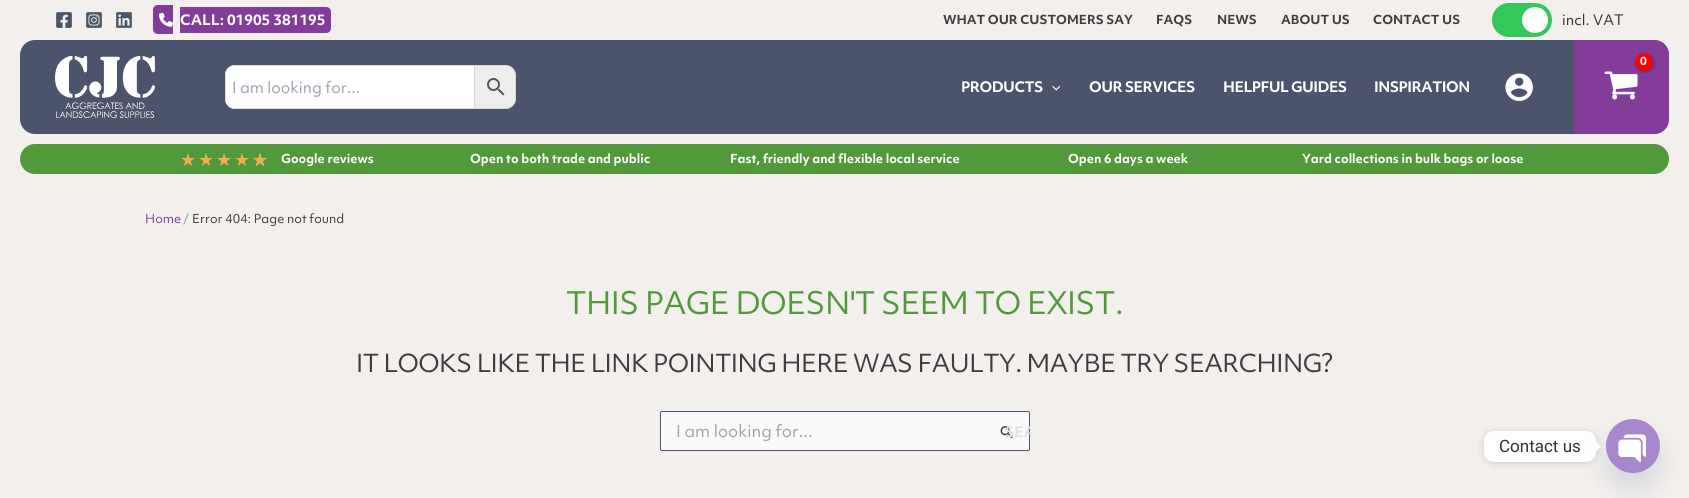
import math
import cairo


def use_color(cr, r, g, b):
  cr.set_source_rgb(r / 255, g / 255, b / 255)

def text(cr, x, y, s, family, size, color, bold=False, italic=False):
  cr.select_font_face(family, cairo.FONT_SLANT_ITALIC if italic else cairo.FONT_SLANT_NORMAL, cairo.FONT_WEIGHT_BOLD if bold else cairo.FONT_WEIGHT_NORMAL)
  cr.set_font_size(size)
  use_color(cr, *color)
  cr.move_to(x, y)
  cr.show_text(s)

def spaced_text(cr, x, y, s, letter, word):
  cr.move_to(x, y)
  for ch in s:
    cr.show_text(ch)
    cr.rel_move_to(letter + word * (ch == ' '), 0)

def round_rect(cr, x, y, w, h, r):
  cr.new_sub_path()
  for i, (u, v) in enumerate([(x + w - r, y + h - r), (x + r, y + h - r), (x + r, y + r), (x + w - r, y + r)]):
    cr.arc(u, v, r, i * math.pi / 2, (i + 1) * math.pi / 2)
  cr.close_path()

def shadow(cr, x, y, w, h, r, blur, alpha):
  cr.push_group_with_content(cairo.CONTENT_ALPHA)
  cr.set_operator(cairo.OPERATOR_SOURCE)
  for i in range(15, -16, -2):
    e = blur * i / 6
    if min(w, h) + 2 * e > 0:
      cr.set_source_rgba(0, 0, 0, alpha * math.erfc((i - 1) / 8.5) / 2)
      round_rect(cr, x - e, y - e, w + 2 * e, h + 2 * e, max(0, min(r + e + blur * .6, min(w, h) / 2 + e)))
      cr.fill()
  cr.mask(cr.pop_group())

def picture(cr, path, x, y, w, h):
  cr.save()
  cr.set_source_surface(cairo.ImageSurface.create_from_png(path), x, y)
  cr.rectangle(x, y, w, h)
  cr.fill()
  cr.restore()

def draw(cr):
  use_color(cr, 242, 239, 237)
  cr.paint()
  picture(cr, "img_01.png", 56, 12, 16, 16)
  picture(cr, "img_02.png", 86, 12, 16, 16)
  picture(cr, "img_03.png", 116, 12, 16, 16)
  use_color(cr, 131, 60, 154)
  cr.new_path()
  cr.move_to(158, 5)
  cr.line_to(173, 5)
  cr.line_to(173, 34)
  cr.line_to(158, 34)
  cr.curve_to(155, 34, 153, 32, 153, 29)
  cr.line_to(153, 10)
  cr.curve_to(153, 7, 155, 5, 158, 5)
  cr.close_path()
  cr.fill()
  cr.new_path()
  cr.move_to(180, 7)
  cr.line_to(326, 7)
  cr.curve_to(329, 7, 331, 9, 331, 12)
  cr.line_to(331, 28)
  cr.curve_to(331, 31, 329, 33, 326, 33)
  cr.line_to(180, 33)
  cr.close_path()
  cr.fill()
  picture(cr, "img_04.png", 159, 12, 14, 15)
  use_color(cr, 52, 199, 89)
  round_rect(cr, 1492, 3, 60, 34, 17)
  cr.fill()
  use_color(cr, 255, 255, 255)
  cr.arc(1535, 20, 13, 0, 2 * math.pi)
  cr.fill()
  use_color(cr, 75, 83, 109)
  round_rect(cr, 20, 40, 1649, 94, 15)
  cr.fill()
  picture(cr, "img_05.png", 55, 56, 100, 62)
  use_color(cr, 237, 237, 237)
  cr.new_path()
  cr.move_to(474.5, 65.5)
  cr.line_to(506, 65.5)
  cr.curve_to(511, 65.5, 515.5, 70, 515.5, 75)
  cr.line_to(515.5, 99)
  cr.curve_to(515.5, 104, 511, 108.5, 506, 108.5)
  cr.line_to(474.5, 108.5)
  cr.close_path()
  cr.fill_preserve()
  use_color(cr, 216, 216, 216)
  cr.set_line_width(1)
  cr.stroke()
  use_color(cr, 255, 255, 255)
  cr.new_path()
  cr.move_to(235, 65)
  cr.line_to(475, 65)
  cr.line_to(475, 109)
  cr.line_to(235, 109)
  cr.curve_to(229.5, 109, 225, 104.5, 225, 99)
  cr.line_to(225, 75)
  cr.curve_to(225, 69.5, 229.5, 65, 235, 65)
  cr.close_path()
  cr.fill()
  use_color(cr, 216, 216, 216)
  cr.set_fill_rule(cairo.FILL_RULE_EVEN_ODD)
  cr.new_path()
  cr.move_to(225, 75)
  cr.line_to(225, 99)
  cr.line_to(226, 103)
  cr.line_to(226, 71)
  cr.close_path()
  cr.move_to(235, 65)
  cr.line_to(231, 66)
  cr.line_to(474, 66)
  cr.line_to(474, 108)
  cr.line_to(231, 108)
  cr.line_to(235, 109)
  cr.line_to(475, 109)
  cr.line_to(475, 65)
  cr.close_path()
  cr.fill()
  picture(cr, "img_06.png", 487, 78, 18, 18)
  use_color(cr, 131, 60, 154)
  cr.new_path()
  cr.move_to(1574, 40)
  cr.line_to(1654, 40)
  cr.curve_to(1662.5, 40, 1669, 46.5, 1669, 55)
  cr.line_to(1669, 119)
  cr.curve_to(1669, 127.5, 1662.5, 134, 1654, 134)
  cr.line_to(1574, 134)
  cr.close_path()
  cr.fill()
  picture(cr, "img_07.png", 1604, 71, 34, 29)
  use_color(cr, 0, 0, 0)
  shadow(cr, 1636, 54, 18, 18, 9, 1.5, 0.3)
  use_color(cr, 255, 0, 0)
  cr.arc(1644, 62, 9, 0, 2 * math.pi)
  cr.fill()
  picture(cr, "img_08.png", 1052, 85, 9, 6)
  picture(cr, "img_09.png", 1505, 73, 28, 28)
  use_color(cr, 82, 153, 59)
  round_rect(cr, 20, 144, 1649, 30, 15)
  cr.fill()
  use_color(cr, 0, 0, 0)
  shadow(cr, 660, 412, 370, 40, 2, 1, 0.05)
  use_color(cr, 250, 250, 250)
  round_rect(cr, 660.5, 411.5, 369, 39, 1.5)
  cr.fill_preserve()
  use_color(cr, 75, 83, 109)
  cr.stroke()
  picture(cr, "img_10.png", 1000, 426, 13, 13)
  use_color(cr, 0, 0, 0)
  shadow(cr, 1484, 432, 112, 31, 10, 4, 0.15)
  use_color(cr, 255, 255, 255)
  round_rect(cr, 1484, 431, 112, 31, 10)
  cr.fill()
  cr.set_fill_rule(cairo.FILL_RULE_WINDING)
  cr.new_path()
  cr.move_to(1596, 451.5)
  cr.line_to(1596, 441.5)
  cr.line_to(1601, 446.5)
  cr.close_path()
  cr.fill()
  use_color(cr, 73, 104, 126)
  shadow(cr, 1606, 435, 54, 54, 27, 12, 0.16)
  picture(cr, "img_11.png", 1606, 419, 54, 54)
  text(cr, 180, 25, "CALL: 01905 381195", "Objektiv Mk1", 14, (255, 255, 255), bold=True)
  text(cr, 943, 24, "WHAT OUR CUSTOMERS SAY", "Objektiv Mk1", 12, (61, 61, 63), bold=True)
  text(cr, 1156, 24, "FAQS", "Objektiv Mk1", 12, (61, 61, 63), bold=True)
  text(cr, 1217, 24, "NEWS", "Objektiv Mk1", 12, (61, 61, 63), bold=True)
  text(cr, 1281, 24, "ABOUT US", "Objektiv Mk1", 12, (61, 61, 63), bold=True)
  text(cr, 1373, 24, "CONTACT US", "Objektiv Mk1", 12, (61, 61, 63), bold=True)
  text(cr, 1562, 25, "incl. VAT", "Objektiv Mk1", 14, (51, 51, 51))
  text(cr, 232, 93, "I am looking for...", "Objektiv Mk1", 15, (156, 163, 175))
  cr.select_font_face("Objektiv Mk1", cairo.FONT_SLANT_NORMAL, cairo.FONT_WEIGHT_BOLD)
  cr.set_font_size(11)
  use_color(cr, 255, 255, 255)
  spaced_text(cr, 1640, 65, "0", -0.5, 0)
  cr.set_font_size(14)
  spaced_text(cr, 961, 92, "PRODUCTS", -0.5, 0)
  spaced_text(cr, 1089, 92, "OUR SERVICES", -0.5, 0)
  spaced_text(cr, 1223, 92, "HELPFUL GUIDES", -0.5, 0)
  spaced_text(cr, 1374, 92, "INSPIRATION", -0.5, 0)
  text(cr, 180, 166, "★", "DejaVu Sans", 18, (240, 173, 78))
  text(cr, 198, 166, "★", "DejaVu Sans", 18, (240, 173, 78))
  text(cr, 216, 166, "★", "DejaVu Sans", 18, (240, 173, 78))
  text(cr, 234, 166, "★", "DejaVu Sans", 18, (240, 173, 78))
  text(cr, 252, 166, "★", "DejaVu Sans", 18, (204, 214, 223))
  text(cr, 252, 166, "★", "DejaVu Sans", 18, (240, 173, 78))
  text(cr, 281, 163, "Google reviews", "Objektiv Mk1", 12, (255, 255, 255), bold=True)
  text(cr, 470, 163, "Open to both trade and public", "Objektiv Mk1", 12, (255, 255, 255), bold=True)
  text(cr, 730, 163, "Fast, friendly and flexible local service", "Objektiv Mk1", 12, (255, 255, 255), bold=True)
  text(cr, 1068, 163, "Open 6 days a week", "Objektiv Mk1", 12, (255, 255, 255), bold=True)
  text(cr, 1302, 163, "Yard collections in bulk bags or loose", "Objektiv Mk1", 12, (255, 255, 255), bold=True)
  text(cr, 145, 223, "Home", "Objektiv Mk1", 12, (131, 60, 154))
  text(cr, 183, 223, "/", "Objektiv Mk1", 12, (150, 150, 150))
  text(cr, 192, 223, "Error 404: Page not found", "Objektiv Mk1", 12, (61, 61, 63))
  cr.set_font_size(30)
  use_color(cr, 82, 153, 59)
  spaced_text(cr, 566, 314, "THIS PAGE DOESN'T SEEM TO EXIST.", -0.5, 0)
  cr.set_font_size(24)
  use_color(cr, 61, 61, 63)
  spaced_text(cr, 356, 372, "IT LOOKS LIKE THE LINK POINTING HERE WAS FAULTY. MAYBE TRY SEARCHING?", -0.5, 0)
  text(cr, 676, 437, "I am looking for...", "Objektiv Mk1", 16, (156, 163, 175))
  cr.save()
  round_rect(cr, 985, 411, 45, 43, 2)
  cr.clip()
  text(cr, 1005, 437, "SEA", "Objektiv Mk1", 14, (225, 225, 227), bold=True)
  cr.restore()
  text(cr, 1499, 452, "Contact us", "Roboto", 17, (51, 51, 51))


surface = cairo.ImageSurface(cairo.FORMAT_RGB24, 1689, 498)
cr = cairo.Context(surface)
options = cairo.FontOptions()
options.set_hint_metrics(cairo.HINT_METRICS_OFF)
options.set_hint_style(cairo.HINT_STYLE_NONE)
cr.set_font_options(options)
cr.set_miter_limit(4)
draw(cr)
surface.write_to_png("out.png")
